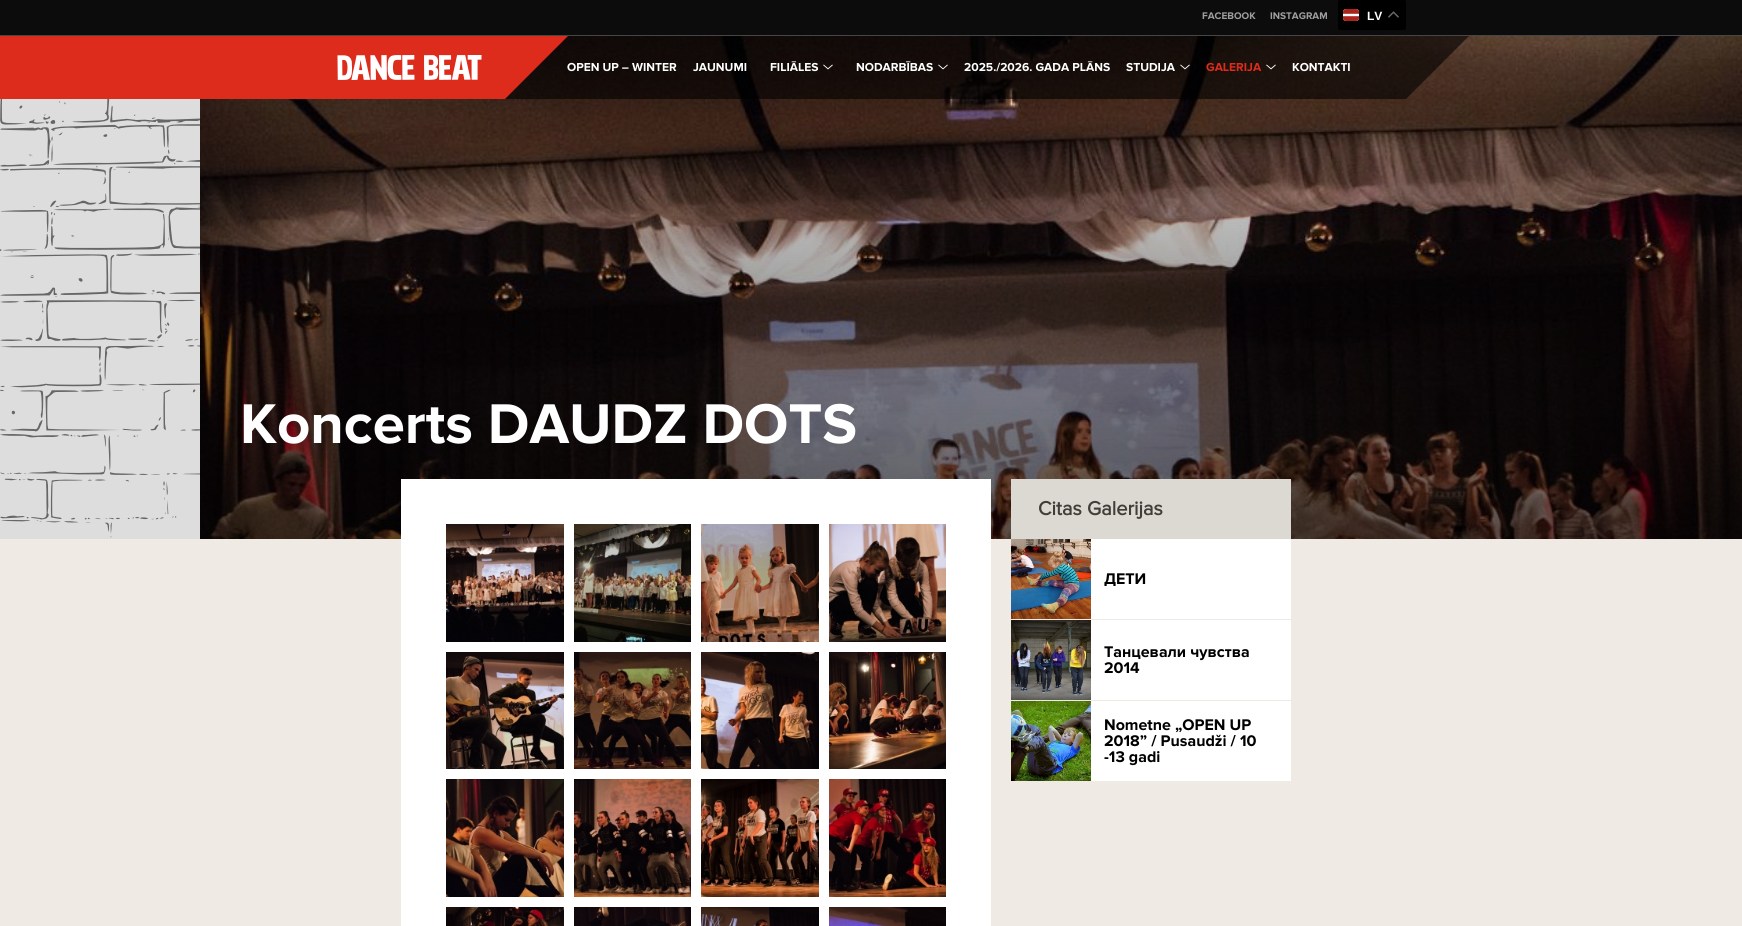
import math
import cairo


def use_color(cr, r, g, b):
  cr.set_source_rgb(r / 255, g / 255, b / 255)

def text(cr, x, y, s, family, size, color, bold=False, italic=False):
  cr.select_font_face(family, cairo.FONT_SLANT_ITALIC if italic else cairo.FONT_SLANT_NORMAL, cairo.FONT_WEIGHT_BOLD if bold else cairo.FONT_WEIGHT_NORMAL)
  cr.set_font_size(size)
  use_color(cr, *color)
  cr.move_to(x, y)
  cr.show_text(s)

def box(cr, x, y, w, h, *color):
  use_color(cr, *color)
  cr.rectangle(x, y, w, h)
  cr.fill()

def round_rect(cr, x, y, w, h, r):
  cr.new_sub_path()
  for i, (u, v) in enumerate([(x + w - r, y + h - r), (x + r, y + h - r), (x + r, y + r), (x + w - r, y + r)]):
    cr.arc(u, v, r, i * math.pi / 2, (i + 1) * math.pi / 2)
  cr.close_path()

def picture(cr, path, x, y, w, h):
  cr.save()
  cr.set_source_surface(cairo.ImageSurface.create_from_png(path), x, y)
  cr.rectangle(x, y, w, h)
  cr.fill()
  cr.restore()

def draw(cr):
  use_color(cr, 239, 234, 228)
  cr.paint()
  box(cr, 0, 0, 1742, 35, 12, 12, 12)
  box(cr, 0, 35, 1742, 1, 70, 70, 70)
  use_color(cr, 0, 0, 0)
  round_rect(cr, 1338, 0, 68, 30, 2)
  cr.fill()
  picture(cr, "img_01.png", 1343, 9, 16, 12)
  picture(cr, "img_02.png", 1388, 11, 11, 7)
  picture(cr, "img_09.png", 200, 36, 1542, 503)
  box(cr, 0, 36, 505, 63, 221, 43, 28)
  picture(cr, "img_03.png", 337, 55, 145, 25)
  cr.set_source_rgba(0, 0, 0, 0.6)
  cr.rectangle(505, 36, 901, 63)
  cr.fill()
  picture(cr, "img_04.png", 823, 64, 10, 6)
  picture(cr, "img_05.png", 938, 64, 10, 6)
  picture(cr, "img_06.png", 1180, 64, 10, 6)
  picture(cr, "img_07.png", 1266, 64, 10, 6)
  cr.new_path()
  cr.move_to(1406, 36)
  cr.line_to(1469, 36)
  cr.line_to(1406, 99)
  cr.close_path()
  cr.fill()
  box(cr, 0, 99, 200, 440, 221, 221, 221)
  picture(cr, "img_08.png", 0, 99, 200, 439)
  box(cr, 401, 479, 590, 447, 255, 255, 255)
  picture(cr, "img_10.png", 446, 524, 118, 118)
  picture(cr, "img_11.png", 574, 524, 117, 118)
  picture(cr, "img_12.png", 701, 524, 118, 118)
  picture(cr, "img_13.png", 829, 524, 117, 118)
  picture(cr, "img_14.png", 446, 652, 118, 117)
  picture(cr, "img_15.png", 574, 652, 117, 117)
  picture(cr, "img_16.png", 701, 652, 118, 117)
  picture(cr, "img_17.png", 829, 652, 117, 117)
  picture(cr, "img_18.png", 446, 779, 118, 118)
  picture(cr, "img_19.png", 574, 779, 117, 118)
  picture(cr, "img_20.png", 701, 779, 118, 118)
  picture(cr, "img_21.png", 829, 779, 117, 118)
  picture(cr, "img_22.png", 446, 907, 118, 19)
  picture(cr, "img_23.png", 574, 907, 117, 19)
  picture(cr, "img_24.png", 701, 907, 118, 19)
  picture(cr, "img_25.png", 829, 907, 117, 19)
  box(cr, 1011, 479, 280, 60, 220, 216, 210)
  box(cr, 1091, 539, 200, 80, 255, 255, 255)
  picture(cr, "img_26.png", 1011, 539, 80, 80)
  box(cr, 1091, 620, 200, 80, 255, 255, 255)
  picture(cr, "img_27.png", 1011, 620, 80, 80)
  box(cr, 1091, 701, 200, 80, 255, 255, 255)
  picture(cr, "img_28.png", 1011, 701, 80, 80)
  text(cr, 1202, 19, "FACEBOOK", "Proxima Nova", 10, (158, 159, 158), bold=True)
  text(cr, 1270, 19, "INSTAGRAM", "Proxima Nova", 10, (158, 159, 158), bold=True)
  text(cr, 1367, 20, "LV", "Liberation Sans", 12, (255, 255, 255), bold=True)
  text(cr, 567, 71, "OPEN UP – WINTER", "Proxima Nova", 12, (255, 255, 255), bold=True)
  use_color(cr, 221, 43, 28)
  cr.new_path()
  cr.move_to(505, 36)
  cr.line_to(568, 36)
  cr.line_to(505, 99)
  cr.close_path()
  cr.fill()
  text(cr, 693, 71, "JAUNUMI", "Proxima Nova", 12, (255, 255, 255), bold=True)
  text(cr, 770, 71, "FILIĀLES", "Proxima Nova", 12, (255, 255, 255), bold=True)
  text(cr, 856, 71, "NODARBĪBAS", "Proxima Nova", 12, (255, 255, 255), bold=True)
  text(cr, 964, 71, "2025./2026. GADA PLĀNS", "Proxima Nova", 12, (255, 255, 255), bold=True)
  text(cr, 1126, 71, "STUDIJA", "Proxima Nova", 12, (255, 255, 255), bold=True)
  text(cr, 1206, 71, "GALERIJA", "Proxima Nova", 12, (221, 43, 28), bold=True)
  text(cr, 1292, 71, "KONTAKTI", "Proxima Nova", 12, (255, 255, 255), bold=True)
  text(cr, 240, 443, "Koncerts DAUDZ DOTS", "Proxima Nova", 58, (255, 255, 255), bold=True)
  text(cr, 1038, 515, "Citas Galerijas", "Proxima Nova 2", 20, (64, 62, 57), bold=True)
  text(cr, 1104, 584, "ДЕТИ", "Proxima Nova", 16, (0, 0, 0), bold=True)
  text(cr, 1104, 657, "Танцевали чувства", "Proxima Nova", 16, (0, 0, 0), bold=True)
  text(cr, 1104, 673, "2014", "Proxima Nova", 16, (0, 0, 0), bold=True)
  text(cr, 1104, 730, "Nometne „OPEN UP", "Proxima Nova", 16, (0, 0, 0), bold=True)
  text(cr, 1104, 746, "2018” / Pusaudži / 10", "Proxima Nova", 16, (0, 0, 0), bold=True)
  text(cr, 1104, 762, "-13 gadi", "Proxima Nova", 16, (0, 0, 0), bold=True)


surface = cairo.ImageSurface(cairo.FORMAT_RGB24, 1742, 926)
cr = cairo.Context(surface)
options = cairo.FontOptions()
options.set_hint_metrics(cairo.HINT_METRICS_OFF)
options.set_hint_style(cairo.HINT_STYLE_NONE)
cr.set_font_options(options)
cr.set_miter_limit(4)
draw(cr)
surface.write_to_png("out.png")
